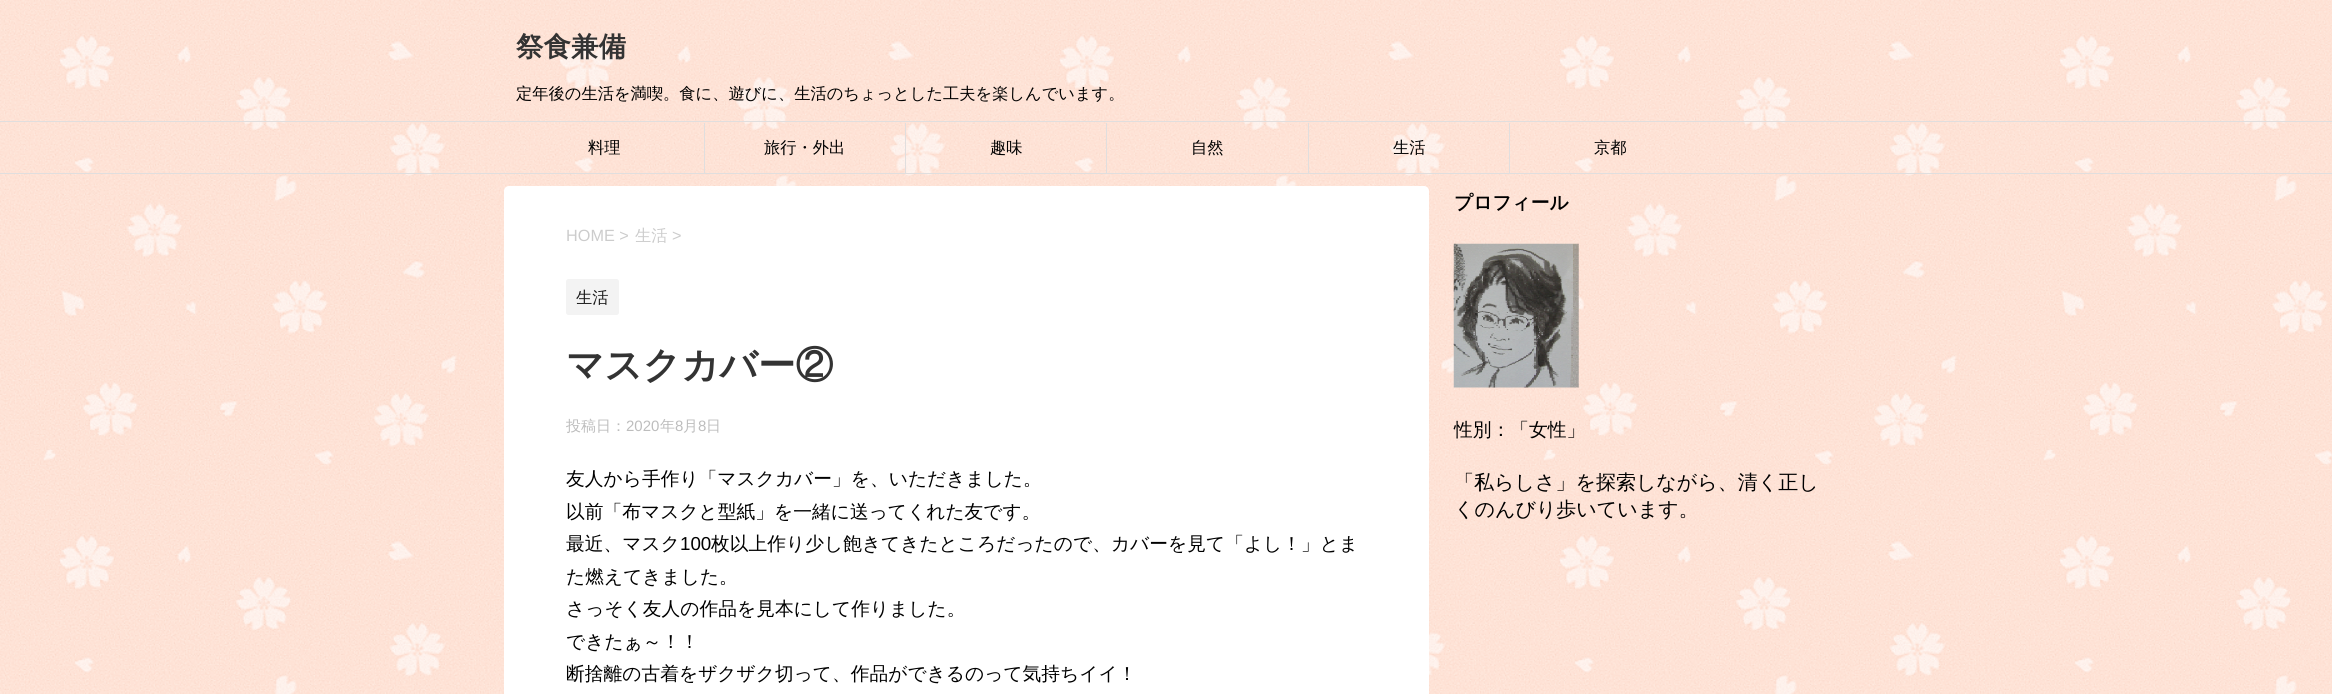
import math
import cairo


def use_color(cr, r, g, b):
  cr.set_source_rgb(r / 255, g / 255, b / 255)

def text(cr, x, y, s, family, size, color, bold=False, italic=False):
  cr.select_font_face(family, cairo.FONT_SLANT_ITALIC if italic else cairo.FONT_SLANT_NORMAL, cairo.FONT_WEIGHT_BOLD if bold else cairo.FONT_WEIGHT_NORMAL)
  cr.set_font_size(size)
  use_color(cr, *color)
  cr.move_to(x, y)
  cr.show_text(s)

def box(cr, x, y, w, h, *color):
  use_color(cr, *color)
  cr.rectangle(x, y, w, h)
  cr.fill()

def round_rect(cr, x, y, w, h, r):
  cr.new_sub_path()
  for i, (u, v) in enumerate([(x + w - r, y + h - r), (x + r, y + h - r), (x + r, y + r), (x + w - r, y + r)]):
    cr.arc(u, v, r, i * math.pi / 2, (i + 1) * math.pi / 2)
  cr.close_path()

def picture(cr, path, x, y, w, h):
  cr.save()
  cr.set_source_surface(cairo.ImageSurface.create_from_png(path), x, y)
  cr.rectangle(x, y, w, h)
  cr.fill()
  cr.restore()

def draw(cr):
  use_color(cr, 255, 255, 255)
  cr.paint()
  picture(cr, "img_01.png", 0, 0, 2332, 694)
  box(cr, 0, 121, 2332, 1, 224, 222, 222)
  box(cr, 0, 173, 2332, 1, 224, 222, 222)
  box(cr, 704, 123, 1, 50, 224, 222, 222)
  box(cr, 905, 123, 1, 50, 224, 222, 222)
  box(cr, 1106, 123, 1, 50, 224, 222, 222)
  box(cr, 1308, 123, 1, 50, 224, 222, 222)
  box(cr, 1509, 123, 1, 50, 224, 222, 222)
  use_color(cr, 255, 255, 255)
  round_rect(cr, 504, 186, 925, 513, 5)
  cr.fill()
  use_color(cr, 243, 243, 243)
  round_rect(cr, 566, 279, 53, 36, 2.5)
  cr.fill()
  picture(cr, "img_02.png", 1453, 243, 126, 145)
  text(cr, 516, 56, "祭食兼備", "WenQuanYi Zen Hei", 27.5, (51, 51, 51), bold=True)
  text(cr, 516, 99, "定年後の生活を満喫。食に、遊びに、生活のちょっとした工夫を楽しんでいます。", "WenQuanYi Zen Hei Medium", 16.25, (0, 0, 0))
  text(cr, 588, 153, "料理", "WenQuanYi Zen Hei Medium", 16.25, (0, 0, 0))
  text(cr, 764, 153, "旅行・外出", "WenQuanYi Zen Hei Medium", 16.25, (0, 0, 0))
  text(cr, 990, 153, "趣味", "WenQuanYi Zen Hei Medium", 16.25, (0, 0, 0))
  text(cr, 1191, 153, "自然", "WenQuanYi Zen Hei Medium", 16.25, (0, 0, 0))
  text(cr, 1393, 153, "生活", "WenQuanYi Zen Hei Medium", 16.25, (0, 0, 0))
  text(cr, 1594, 153, "京都", "WenQuanYi Zen Hei Medium", 16.25, (0, 0, 0))
  text(cr, 566, 241, "HOME >", "Liberation Sans", 16.25, (204, 204, 204))
  text(cr, 635, 241, "生活", "WenQuanYi Zen Hei Medium", 16.25, (204, 204, 204))
  text(cr, 672, 241, ">", "Liberation Sans", 16.25, (204, 204, 204))
  text(cr, 576, 303, "生活", "WenQuanYi Zen Hei Medium", 16.25, (26, 26, 26))
  text(cr, 566, 378, "マスクカバー②", "WenQuanYi Zen Hei", 37.5, (51, 51, 51), bold=True)
  text(cr, 566, 431, "投稿日：", "WenQuanYi Zen Hei Medium", 15, (189, 189, 189))
  text(cr, 626, 431, "2020", "Liberation Sans", 15, (189, 189, 189))
  text(cr, 660, 431, "年", "WenQuanYi Zen Hei Medium", 15, (189, 189, 189))
  text(cr, 675, 431, "8", "Liberation Sans", 15, (189, 189, 189))
  text(cr, 683, 431, "月", "WenQuanYi Zen Hei Medium", 15, (189, 189, 189))
  text(cr, 698, 431, "8", "Liberation Sans", 15, (189, 189, 189))
  text(cr, 706, 431, "日", "WenQuanYi Zen Hei Medium", 15, (189, 189, 189))
  text(cr, 566, 485, "友人から手作り「マスクカバー」を、いただきました。", "WenQuanYi Zen Hei Medium", 18.75, (0, 0, 0))
  text(cr, 566, 518, "以前「布マスクと型紙」を一緒に送ってくれた友です。", "WenQuanYi Zen Hei Medium", 18.75, (0, 0, 0))
  text(cr, 566, 550, "最近、マスク", "WenQuanYi Zen Hei Medium", 18.75, (0, 0, 0))
  text(cr, 680, 550, "100", "Liberation Sans", 18.75, (0, 0, 0))
  text(cr, 711, 550, "枚以上作り少し飽きてきたところだったので、カバーを見て「よし！」とま", "WenQuanYi Zen Hei Medium", 18.75, (0, 0, 0))
  text(cr, 566, 583, "た燃えてきました。", "WenQuanYi Zen Hei Medium", 18.75, (0, 0, 0))
  text(cr, 566, 615, "さっそく友人の作品を見本にして作りました。", "WenQuanYi Zen Hei Medium", 18.75, (0, 0, 0))
  text(cr, 566, 648, "できたぁ～！！", "WenQuanYi Zen Hei Medium", 18.75, (0, 0, 0))
  text(cr, 566, 680, "断捨離の古着をザクザク切って、作品ができるのって気持ちイイ！", "WenQuanYi Zen Hei Medium", 18.75, (0, 0, 0))
  text(cr, 1454, 209, "プロフィール", "WenQuanYi Zen Hei", 18.75, (0, 0, 0), bold=True)
  text(cr, 1454, 436, "性別：「女性」", "WenQuanYi Zen Hei Medium", 18.75, (0, 0, 0))
  text(cr, 1454, 489, "「私らしさ」を探索しながら、清く正し", "WenQuanYi Zen Hei Medium", 20, (0, 0, 0))
  text(cr, 1454, 516, "くのんびり歩いています。", "WenQuanYi Zen Hei Medium", 20, (0, 0, 0))


surface = cairo.ImageSurface(cairo.FORMAT_RGB24, 2332, 694)
cr = cairo.Context(surface)
options = cairo.FontOptions()
options.set_hint_metrics(cairo.HINT_METRICS_OFF)
options.set_hint_style(cairo.HINT_STYLE_NONE)
cr.set_font_options(options)
cr.set_miter_limit(4)
draw(cr)
surface.write_to_png("out.png")
